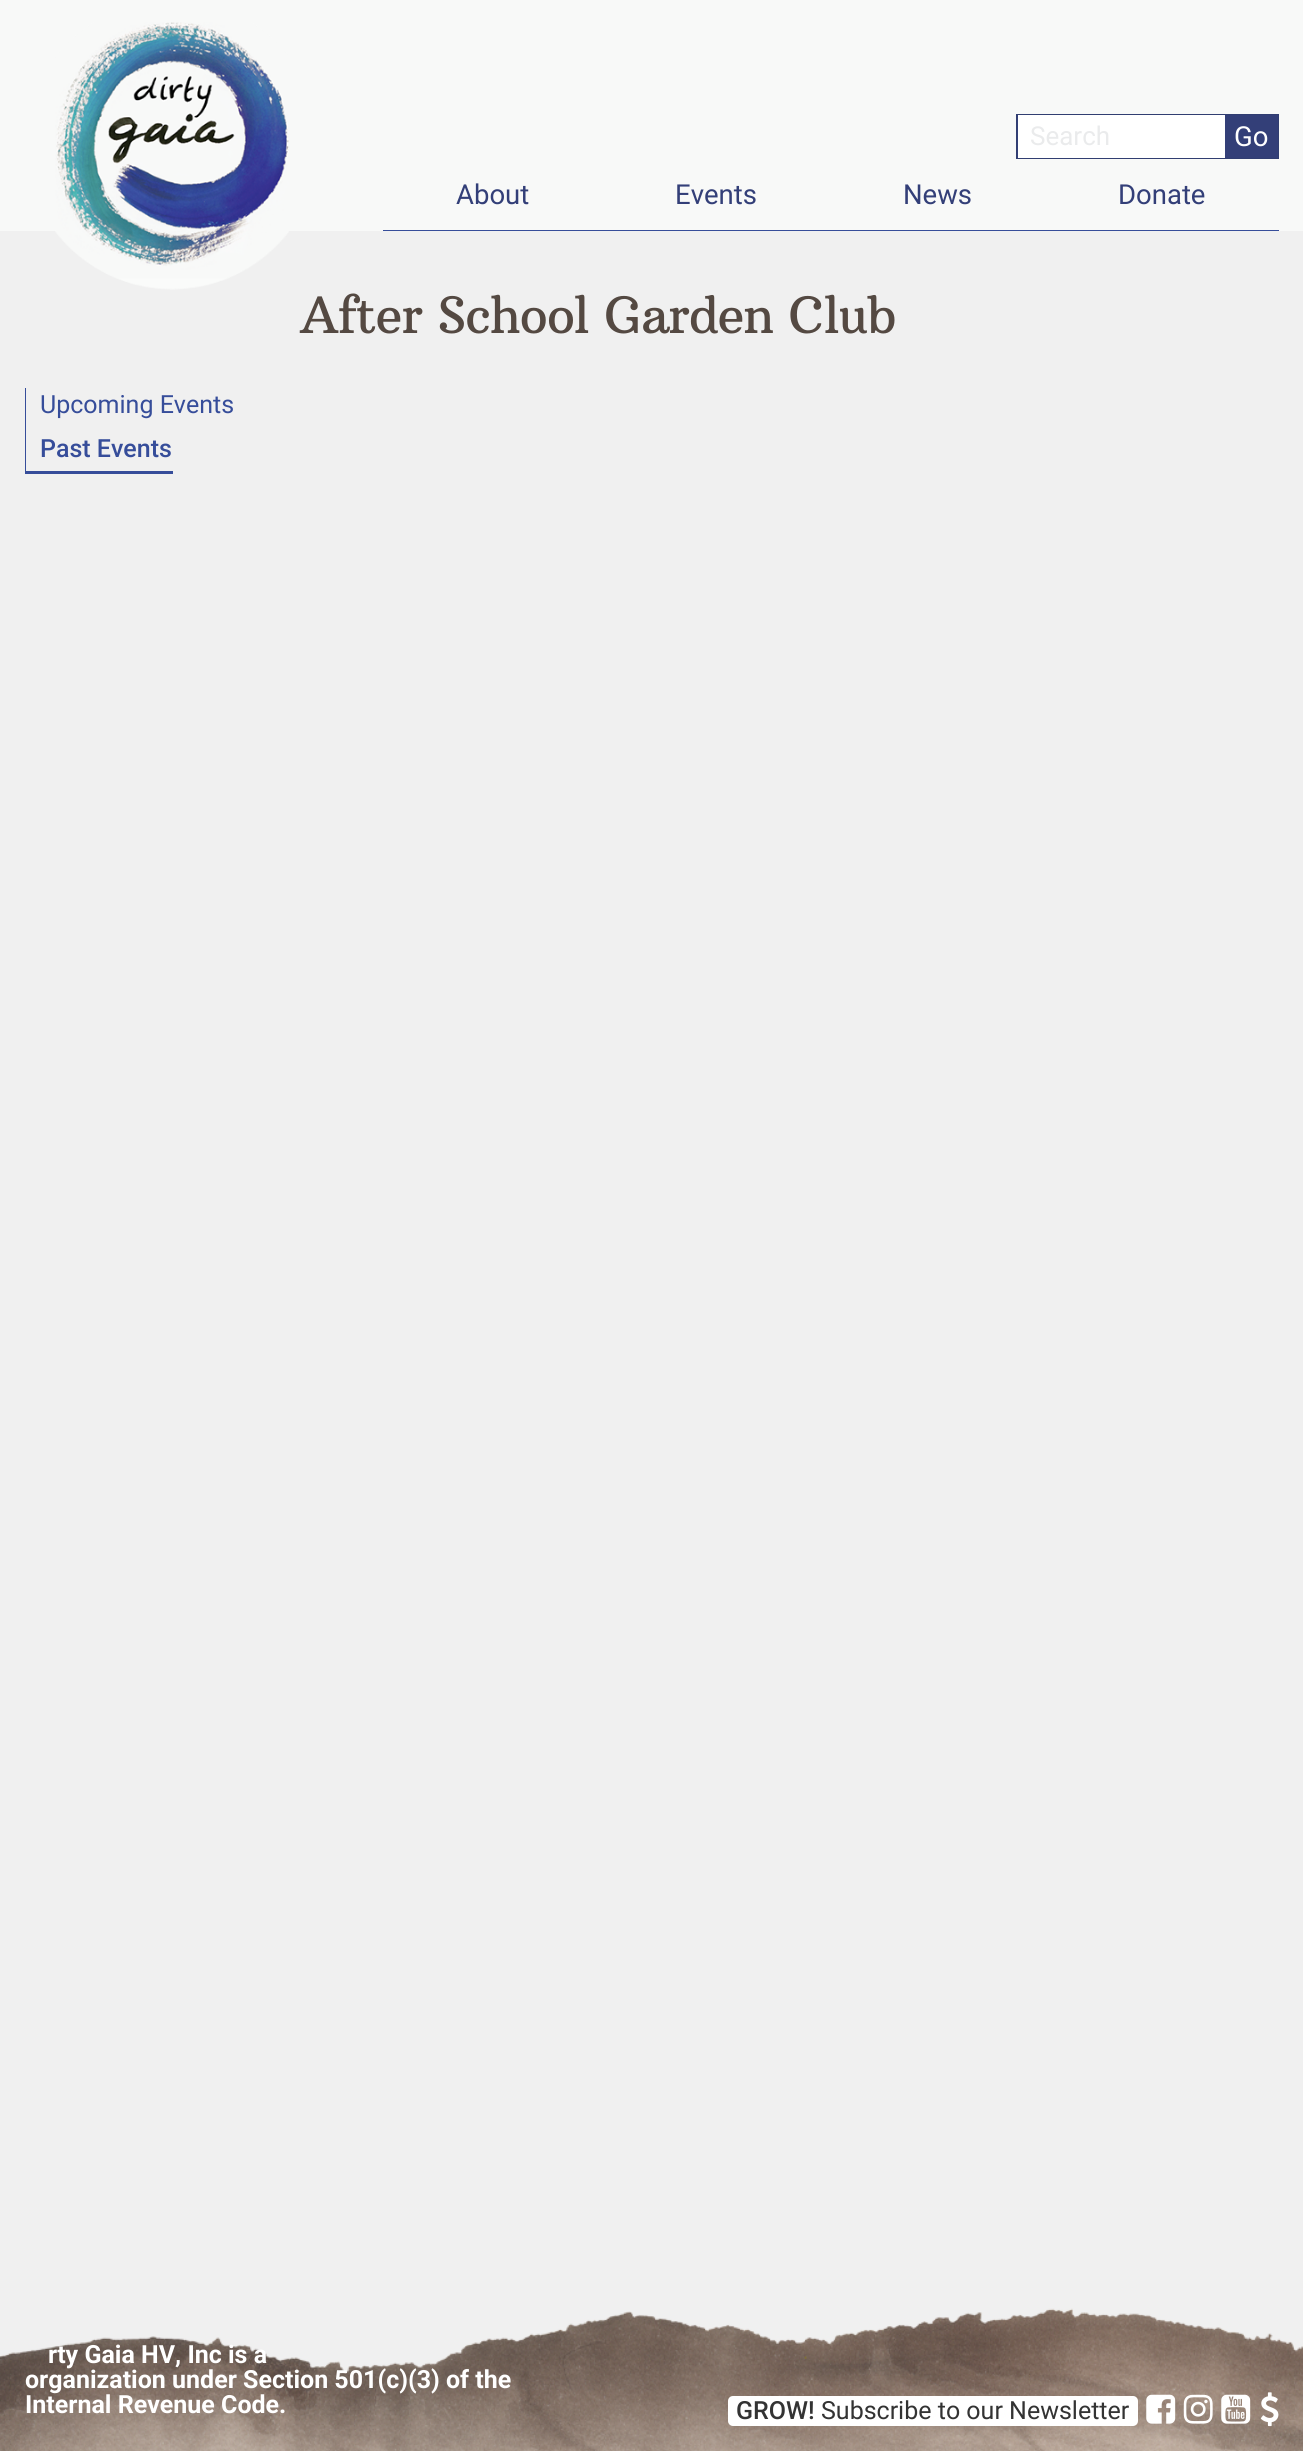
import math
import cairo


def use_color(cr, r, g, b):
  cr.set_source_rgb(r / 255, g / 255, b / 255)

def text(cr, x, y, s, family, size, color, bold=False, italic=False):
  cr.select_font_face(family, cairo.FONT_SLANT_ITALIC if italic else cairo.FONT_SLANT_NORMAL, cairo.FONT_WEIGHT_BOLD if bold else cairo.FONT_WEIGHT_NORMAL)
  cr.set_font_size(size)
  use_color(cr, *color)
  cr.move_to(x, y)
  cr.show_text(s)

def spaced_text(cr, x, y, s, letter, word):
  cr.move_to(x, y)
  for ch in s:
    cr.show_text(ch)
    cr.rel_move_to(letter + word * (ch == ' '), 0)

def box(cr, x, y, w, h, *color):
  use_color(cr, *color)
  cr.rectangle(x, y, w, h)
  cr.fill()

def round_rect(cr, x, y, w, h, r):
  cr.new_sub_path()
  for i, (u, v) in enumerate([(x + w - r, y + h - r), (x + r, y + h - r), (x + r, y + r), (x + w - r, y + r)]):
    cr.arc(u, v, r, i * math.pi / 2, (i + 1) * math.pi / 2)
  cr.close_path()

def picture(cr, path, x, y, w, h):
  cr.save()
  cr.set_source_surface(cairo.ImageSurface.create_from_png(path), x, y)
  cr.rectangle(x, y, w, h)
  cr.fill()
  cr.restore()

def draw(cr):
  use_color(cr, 240, 240, 240)
  cr.paint()
  box(cr, 0, 0, 1303, 231, 248, 249, 248)
  picture(cr, "img_01.png", 55, 22, 234, 268)
  box(cr, 383, 230, 896, 1, 54, 77, 154)
  use_color(cr, 51, 63, 120)
  cr.rectangle(1016.5, 114.5, 262, 44)
  cr.fill_preserve()
  use_color(cr, 49, 62, 113)
  cr.set_line_width(1)
  cr.stroke()
  box(cr, 1018, 115, 207, 43, 255, 255, 255)
  box(cr, 25, 388, 1, 86, 54, 77, 154)
  box(cr, 26, 471, 147, 3, 54, 77, 154)
  picture(cr, "img_02.png", 0, 2308, 1303, 143)
  use_color(cr, 255, 255, 255)
  round_rect(cr, 728, 2396, 410, 30, 5)
  cr.fill()
  picture(cr, "img_03.png", 1146, 2394, 30, 30)
  picture(cr, "img_04.png", 1183, 2394, 30, 30)
  picture(cr, "img_05.png", 1221, 2394, 30, 30)
  picture(cr, "img_06.png", 1260, 2392, 19, 35)
  text(cr, 1030, 145, "Search", "Roboto", 26, (234, 235, 236))
  text(cr, 1234, 146, "Go", "Roboto", 27.5, (255, 255, 255))
  text(cr, 456, 204, "About", "Roboto", 27.5, (51, 63, 120))
  text(cr, 675, 204, "Events", "Roboto", 27.5, (51, 63, 120))
  text(cr, 903, 204, "News", "Roboto", 27.5, (51, 63, 120))
  text(cr, 1118, 204, "Donate", "Roboto", 27.5, (51, 63, 120))
  cr.select_font_face("Arbutus Slab")
  cr.set_font_size(50)
  use_color(cr, 84, 73, 66)
  spaced_text(cr, 300, 333, "After School Garden Club", -1.25, 0)
  text(cr, 40, 413, "Upcoming Events", "Roboto", 25, (54, 77, 154))
  text(cr, 40, 457, "Past Events", "Roboto Medium", 25, (54, 77, 154))
  text(cr, 48, 2363, "rty Gaia HV, Inc is a", "Roboto", 25, (255, 255, 255), bold=True)
  text(cr, 25, 2388, "organization under Section 501(c)(3) of the", "Roboto", 25, (255, 255, 255), bold=True)
  text(cr, 25, 2413, "Internal Revenue Code.", "Roboto", 25, (255, 255, 255), bold=True)
  text(cr, 736, 2419, "GROW!", "Roboto Medium", 25, (51, 51, 51))
  text(cr, 821, 2419, "Subscribe to our Newsletter", "Roboto", 25, (51, 51, 51))


surface = cairo.ImageSurface(cairo.FORMAT_RGB24, 1303, 2451)
cr = cairo.Context(surface)
options = cairo.FontOptions()
options.set_hint_metrics(cairo.HINT_METRICS_OFF)
options.set_hint_style(cairo.HINT_STYLE_NONE)
cr.set_font_options(options)
cr.set_miter_limit(4)
draw(cr)
surface.write_to_png("out.png")
